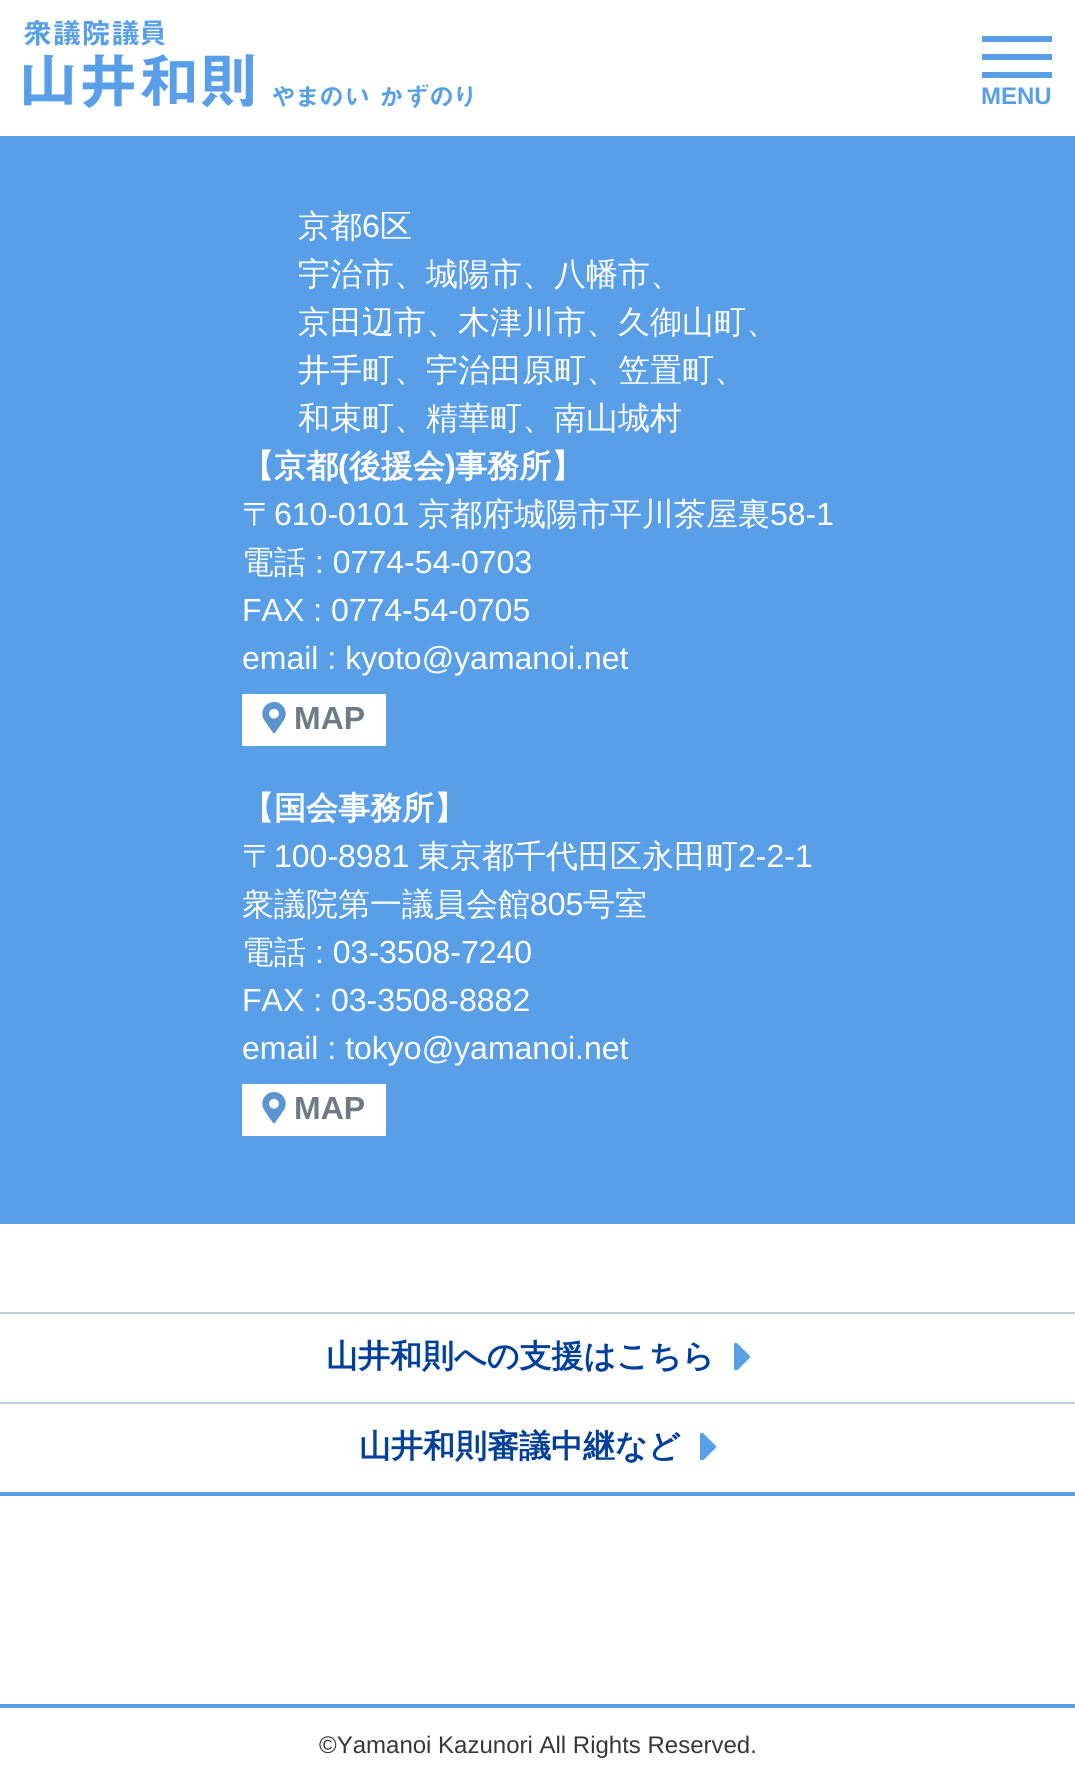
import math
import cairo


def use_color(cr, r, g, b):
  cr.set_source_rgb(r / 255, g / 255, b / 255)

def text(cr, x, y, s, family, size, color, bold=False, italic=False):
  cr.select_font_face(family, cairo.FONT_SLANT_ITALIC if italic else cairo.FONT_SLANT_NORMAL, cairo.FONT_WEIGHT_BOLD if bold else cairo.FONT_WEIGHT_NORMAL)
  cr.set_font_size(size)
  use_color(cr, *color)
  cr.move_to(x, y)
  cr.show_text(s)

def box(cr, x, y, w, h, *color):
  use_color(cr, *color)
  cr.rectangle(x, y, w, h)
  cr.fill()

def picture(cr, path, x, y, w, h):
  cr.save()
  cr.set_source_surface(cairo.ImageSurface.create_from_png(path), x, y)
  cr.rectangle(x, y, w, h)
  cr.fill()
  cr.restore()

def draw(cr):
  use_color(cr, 88, 159, 232)
  cr.paint()
  box(cr, 0, 0, 1075, 136, 255, 255, 255)
  picture(cr, "img_01.png", 24, 20, 448, 88)
  box(cr, 982, 36, 70, 6, 88, 159, 232)
  box(cr, 982, 54, 70, 6, 88, 159, 232)
  box(cr, 982, 72, 70, 6, 88, 159, 232)
  box(cr, 242, 694, 144, 52, 255, 255, 255)
  picture(cr, "img_02.png", 262, 702, 24, 32)
  box(cr, 242, 1084, 144, 52, 255, 255, 255)
  picture(cr, "img_02.png", 262, 1092, 24, 32)
  box(cr, 0, 1224, 1075, 268, 255, 255, 255)
  box(cr, 0, 1312, 1075, 2, 187, 207, 226)
  box(cr, 0, 1402, 1075, 2, 187, 207, 226)
  picture(cr, "img_03.png", 734, 1342, 16, 28)
  picture(cr, "img_03.png", 700, 1432, 16, 28)
  box(cr, 0, 1496, 1075, 208, 255, 255, 255)
  box(cr, 0, 1708, 1075, 76, 255, 255, 255)
  text(cr, 981, 104, "MENU", "Liberation Sans", 24, (88, 159, 232), bold=True)
  text(cr, 298, 237, "京都", "WenQuanYi Zen Hei Medium", 32, (255, 255, 255))
  text(cr, 362, 237, "6", "Liberation Sans", 32, (255, 255, 255))
  text(cr, 380, 237, "区", "WenQuanYi Zen Hei Medium", 32, (255, 255, 255))
  text(cr, 298, 285, "宇治市、城陽市、八幡市、", "WenQuanYi Zen Hei Medium", 32, (255, 255, 255))
  text(cr, 298, 333, "京田辺市、木津川市、久御山町、", "WenQuanYi Zen Hei Medium", 32, (255, 255, 255))
  text(cr, 298, 381, "井手町、宇治田原町、笠置町、", "WenQuanYi Zen Hei Medium", 32, (255, 255, 255))
  text(cr, 298, 429, "和束町、精華町、南山城村", "WenQuanYi Zen Hei Medium", 32, (255, 255, 255))
  text(cr, 242, 477, "【京都", "WenQuanYi Zen Hei", 32, (255, 255, 255), bold=True)
  text(cr, 338, 477, "(", "Liberation Sans", 32, (255, 255, 255), bold=True)
  text(cr, 349, 477, "後援会", "WenQuanYi Zen Hei", 32, (255, 255, 255), bold=True)
  text(cr, 445, 477, ")", "Liberation Sans", 32, (255, 255, 255), bold=True)
  text(cr, 455, 477, "事務所】", "WenQuanYi Zen Hei", 32, (255, 255, 255), bold=True)
  text(cr, 242, 525, "〒", "WenQuanYi Zen Hei Medium", 32, (255, 255, 255))
  text(cr, 274, 525, "610-0101", "Liberation Sans", 32, (255, 255, 255))
  text(cr, 418, 525, "京都府城陽市平川茶屋裏", "WenQuanYi Zen Hei Medium", 32, (255, 255, 255))
  text(cr, 770, 525, "58-1", "Liberation Sans", 32, (255, 255, 255))
  text(cr, 242, 573, "電話", "WenQuanYi Zen Hei Medium", 32, (255, 255, 255))
  text(cr, 315, 573, ": 0774-54-0703", "Liberation Sans", 32, (255, 255, 255))
  text(cr, 242, 621, "FAX : 0774-54-0705", "Liberation Sans", 32, (255, 255, 255))
  text(cr, 242, 669, "email : kyoto@yamanoi.net", "Liberation Sans", 32, (255, 255, 255))
  text(cr, 294, 729, "MAP", "Liberation Sans", 32, (109, 123, 134), bold=True)
  text(cr, 242, 819, "【国会事務所】", "WenQuanYi Zen Hei", 32, (255, 255, 255), bold=True)
  text(cr, 242, 867, "〒", "WenQuanYi Zen Hei Medium", 32, (255, 255, 255))
  text(cr, 274, 867, "100-8981", "Liberation Sans", 32, (255, 255, 255))
  text(cr, 418, 867, "東京都千代田区永田町", "WenQuanYi Zen Hei Medium", 32, (255, 255, 255))
  text(cr, 738, 867, "2-2-1", "Liberation Sans", 32, (255, 255, 255))
  text(cr, 242, 915, "衆議院第一議員会館", "WenQuanYi Zen Hei Medium", 32, (255, 255, 255))
  text(cr, 530, 915, "805", "Liberation Sans", 32, (255, 255, 255))
  text(cr, 583, 915, "号室", "WenQuanYi Zen Hei Medium", 32, (255, 255, 255))
  text(cr, 242, 963, "電話", "WenQuanYi Zen Hei Medium", 32, (255, 255, 255))
  text(cr, 315, 963, ": 03-3508-7240", "Liberation Sans", 32, (255, 255, 255))
  text(cr, 242, 1011, "FAX : 03-3508-8882", "Liberation Sans", 32, (255, 255, 255))
  text(cr, 242, 1059, "email : tokyo@yamanoi.net", "Liberation Sans", 32, (255, 255, 255))
  text(cr, 294, 1119, "MAP", "Liberation Sans", 32, (109, 123, 134), bold=True)
  text(cr, 326, 1367, "山井和則への支援はこちら", "WenQuanYi Zen Hei", 32, (1, 64, 152), bold=True)
  text(cr, 359, 1457, "山井和則審議中継など", "WenQuanYi Zen Hei", 32, (1, 64, 152), bold=True)
  text(cr, 319, 1753, "©Yamanoi Kazunori All Rights Reserved.", "Liberation Sans", 24, (55, 55, 55))


surface = cairo.ImageSurface(cairo.FORMAT_RGB24, 1075, 1784)
cr = cairo.Context(surface)
options = cairo.FontOptions()
options.set_hint_metrics(cairo.HINT_METRICS_OFF)
options.set_hint_style(cairo.HINT_STYLE_NONE)
cr.set_font_options(options)
cr.set_miter_limit(4)
draw(cr)
surface.write_to_png("out.png")
